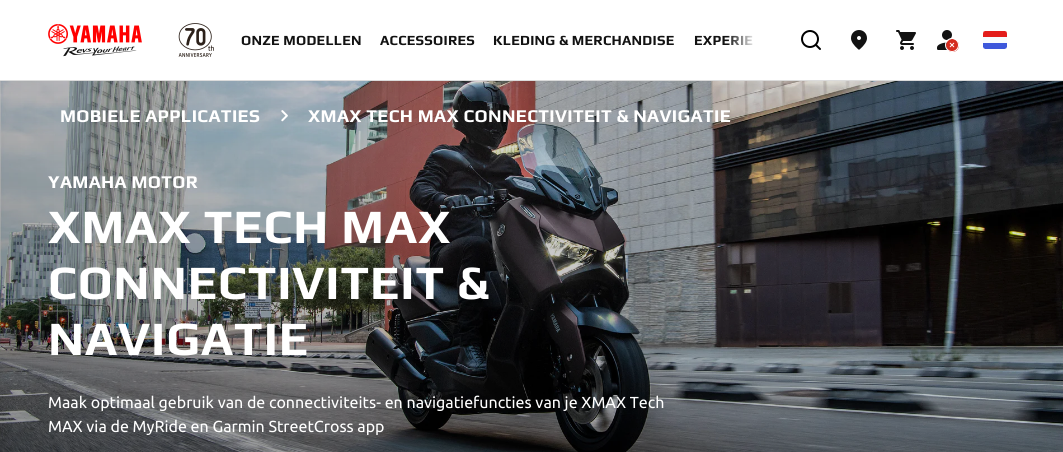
import math
import cairo


def use_color(cr, r, g, b):
  cr.set_source_rgb(r / 255, g / 255, b / 255)

def text(cr, x, y, s, family, size, color, bold=False, italic=False):
  cr.select_font_face(family, cairo.FONT_SLANT_ITALIC if italic else cairo.FONT_SLANT_NORMAL, cairo.FONT_WEIGHT_BOLD if bold else cairo.FONT_WEIGHT_NORMAL)
  cr.set_font_size(size)
  use_color(cr, *color)
  cr.move_to(x, y)
  cr.show_text(s)

def spaced_text(cr, x, y, s, letter, word):
  cr.move_to(x, y)
  for ch in s:
    cr.show_text(ch)
    cr.rel_move_to(letter + word * (ch == ' '), 0)

def box(cr, x, y, w, h, *color):
  use_color(cr, *color)
  cr.rectangle(x, y, w, h)
  cr.fill()

def picture(cr, path, x, y, w, h):
  cr.save()
  cr.set_source_surface(cairo.ImageSurface.create_from_png(path), x, y)
  cr.rectangle(x, y, w, h)
  cr.fill()
  cr.restore()

def draw(cr):
  use_color(cr, 255, 255, 255)
  cr.paint()
  box(cr, 0, 80, 1063, 1, 219, 219, 219)
  picture(cr, "img_01.png", 48, 24, 94, 33)
  picture(cr, "img_02.png", 178, 23, 36, 34)
  picture(cr, "img_03.png", 801, 30, 20, 20)
  picture(cr, "img_04.png", 851, 30, 16, 20)
  picture(cr, "img_05.png", 896, 30, 20, 20)
  picture(cr, "img_06.png", 937, 30, 22, 22)
  picture(cr, "img_07.png", 983, 31, 24, 18)
  picture(cr, "img_09.png", 0, 81, 1063, 371)
  picture(cr, "img_08.png", 281, 110, 7, 12)
  cr.select_font_face("Play", cairo.FONT_SLANT_NORMAL, cairo.FONT_WEIGHT_BOLD)
  cr.set_font_size(14)
  use_color(cr, 18, 18, 18)
  spaced_text(cr, 241, 45, "ONZE MODELLEN", 0.25, 0)
  spaced_text(cr, 380, 45, "ACCESSOIRES", 0.25, 0)
  spaced_text(cr, 493, 45, "KLEDING & MERCHANDISE", 0.25, 0)
  spaced_text(cr, 694, 45, "EXPERIE", 0.25, 0)
  gradient = cairo.LinearGradient(767, 40, 727, 40)
  gradient.add_color_stop_rgba(0.25, 1, 1, 1, 1)
  gradient.add_color_stop_rgba(1, 1, 1, 1, 0)
  cr.set_source(gradient)
  cr.rectangle(728, 35, 25, 10)
  cr.fill()
  cr.set_font_size(18)
  use_color(cr, 255, 255, 255)
  spaced_text(cr, 60, 122, "MOBIELE APPLICATIES", 0.35, 0)
  spaced_text(cr, 308, 122, "XMAX TECH MAX CONNECTIVITEIT & NAVIGATIE", 0.35, 0)
  spaced_text(cr, 48, 188, "YAMAHA MOTOR", 0.35, 0)
  cr.set_font_size(48)
  spaced_text(cr, 48, 243, "XMAX TECH MAX", 1, 0)
  spaced_text(cr, 48, 299, "CONNECTIVITEIT &", 1, 0)
  spaced_text(cr, 48, 355, "NAVIGATIE", 1, 0)
  text(cr, 48, 408, "Maak optimaal gebruik van de connectiviteits- en navigatiefuncties van je XMAX Tech", "Ubuntu", 16, (255, 255, 255))
  text(cr, 48, 432, "MAX via de MyRide en Garmin StreetCross app", "Ubuntu", 16, (255, 255, 255))


surface = cairo.ImageSurface(cairo.FORMAT_RGB24, 1063, 452)
cr = cairo.Context(surface)
options = cairo.FontOptions()
options.set_hint_metrics(cairo.HINT_METRICS_OFF)
options.set_hint_style(cairo.HINT_STYLE_NONE)
cr.set_font_options(options)
cr.set_miter_limit(4)
draw(cr)
surface.write_to_png("out.png")
